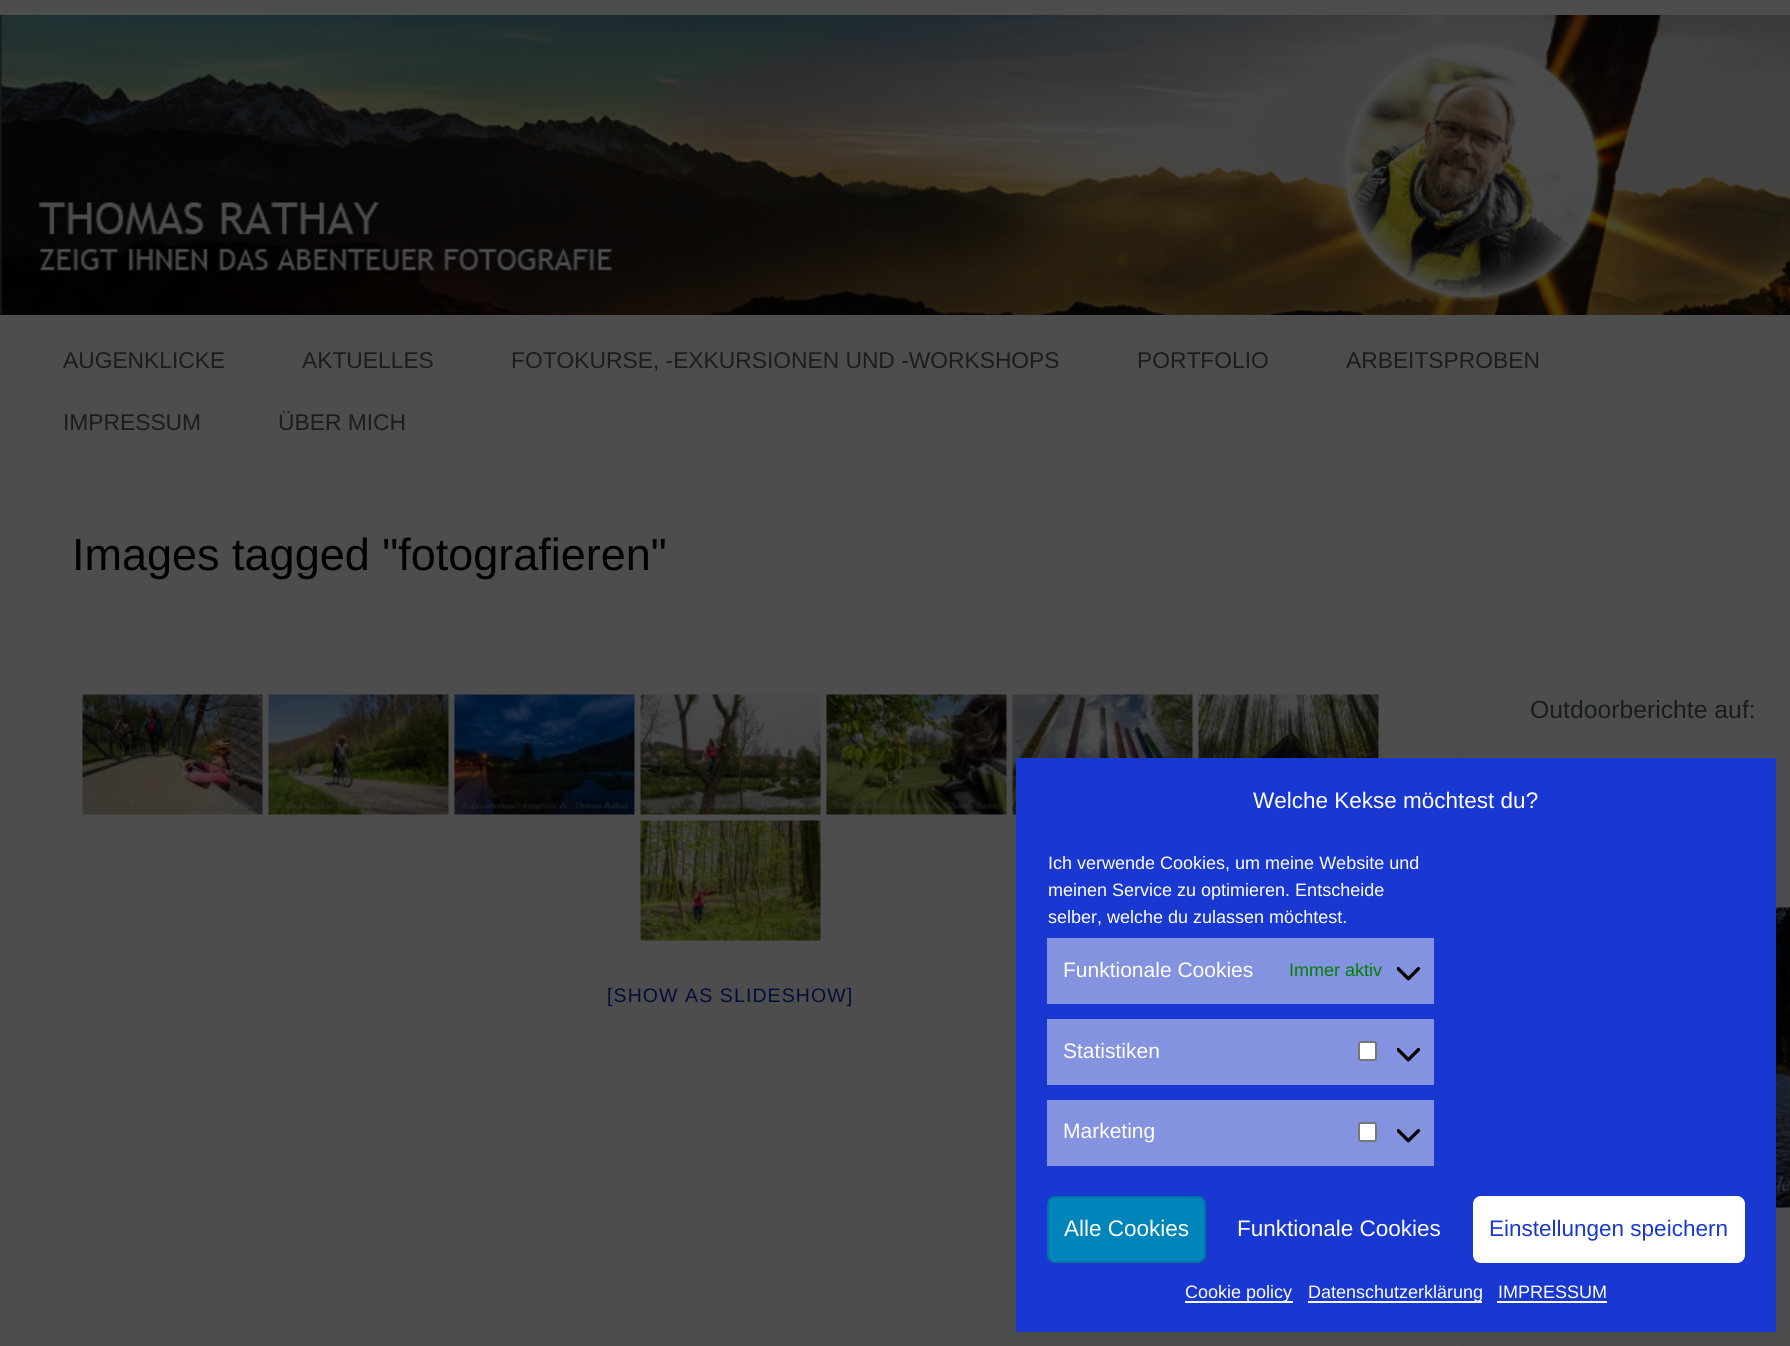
import math
import cairo


def use_color(cr, r, g, b):
  cr.set_source_rgb(r / 255, g / 255, b / 255)

def text(cr, x, y, s, family, size, color, bold=False, italic=False):
  cr.select_font_face(family, cairo.FONT_SLANT_ITALIC if italic else cairo.FONT_SLANT_NORMAL, cairo.FONT_WEIGHT_BOLD if bold else cairo.FONT_WEIGHT_NORMAL)
  cr.set_font_size(size)
  use_color(cr, *color)
  cr.move_to(x, y)
  cr.show_text(s)

def spaced_text(cr, x, y, s, letter, word):
  cr.move_to(x, y)
  for ch in s:
    cr.show_text(ch)
    cr.rel_move_to(letter + word * (ch == ' '), 0)

def box(cr, x, y, w, h, *color):
  use_color(cr, *color)
  cr.rectangle(x, y, w, h)
  cr.fill()

def round_rect(cr, x, y, w, h, r):
  cr.new_sub_path()
  for i, (u, v) in enumerate([(x + w - r, y + h - r), (x + r, y + h - r), (x + r, y + r), (x + w - r, y + r)]):
    cr.arc(u, v, r, i * math.pi / 2, (i + 1) * math.pi / 2)
  cr.close_path()

def picture(cr, path, x, y, w, h):
  cr.save()
  cr.set_source_surface(cairo.ImageSurface.create_from_png(path), x, y)
  cr.rectangle(x, y, w, h)
  cr.fill()
  cr.restore()

def draw(cr):
  use_color(cr, 77, 77, 77)
  cr.paint()
  picture(cr, "img_01.png", 0, 15, 1790, 300)
  picture(cr, "img_02.png", 82, 694, 181, 121)
  picture(cr, "img_03.png", 268, 694, 181, 121)
  picture(cr, "img_04.png", 454, 694, 181, 121)
  picture(cr, "img_05.png", 640, 694, 181, 121)
  picture(cr, "img_06.png", 826, 694, 181, 121)
  picture(cr, "img_07.png", 1012, 694, 181, 121)
  picture(cr, "img_08.png", 1198, 694, 181, 64)
  picture(cr, "img_09.png", 640, 820, 181, 121)
  cr.new_path()
  cr.move_to(1462, 453)
  cr.line_to(1462, 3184.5)
  use_color(cr, 70, 70, 70)
  cr.set_line_width(1.5)
  cr.set_dash([1.5, 1.5])
  cr.stroke()
  picture(cr, "img_10.png", 1776, 907, 14, 301)
  box(cr, 1016, 758, 760, 574, 25, 55, 209)
  box(cr, 1047, 938, 387, 66, 132, 147, 224)
  picture(cr, "img_11.png", 1397, 967, 24, 14)
  box(cr, 1047, 1019, 387, 66, 132, 147, 224)
  use_color(cr, 255, 255, 255)
  round_rect(cr, 1359, 1042, 17, 18, 2)
  cr.fill_preserve()
  use_color(cr, 118, 118, 118)
  cr.set_line_width(2)
  cr.set_dash([])
  cr.stroke()
  picture(cr, "img_11.png", 1397, 1048, 24, 14)
  box(cr, 1047, 1100, 387, 66, 132, 147, 224)
  use_color(cr, 255, 255, 255)
  round_rect(cr, 1359, 1123, 17, 18, 2)
  cr.fill_preserve()
  use_color(cr, 118, 118, 118)
  cr.stroke()
  picture(cr, "img_11.png", 1397, 1129, 24, 14)
  use_color(cr, 0, 133, 186)
  round_rect(cr, 1048, 1197, 157, 65, 7)
  cr.fill_preserve()
  use_color(cr, 0, 115, 170)
  cr.stroke()
  use_color(cr, 255, 255, 255)
  round_rect(cr, 1474, 1197, 270, 65, 7)
  cr.fill_preserve()
  cr.stroke()
  box(cr, 1185, 1301, 108, 2, 255, 255, 255)
  box(cr, 1308, 1301, 174, 2, 255, 255, 255)
  box(cr, 1497, 1301, 110, 2, 255, 255, 255)
  text(cr, 63, 368, "AUGENKLICKE", "Liberation Sans", 22.8, (29, 27, 27))
  text(cr, 302, 368, "AKTUELLES", "Liberation Sans", 22.8, (29, 27, 27))
  text(cr, 511, 368, "FOTOKURSE, -EXKURSIONEN UND -WORKSHOPS", "Liberation Sans", 22.8, (29, 27, 27))
  text(cr, 1137, 368, "PORTFOLIO", "Liberation Sans", 22.8, (29, 27, 27))
  text(cr, 1346, 368, "ARBEITSPROBEN", "Liberation Sans", 22.8, (29, 27, 27))
  text(cr, 63, 430, "IMPRESSUM", "Liberation Sans", 22.8, (29, 27, 27))
  text(cr, 278, 430, "ÜBER MICH", "Liberation Sans", 22.8, (29, 27, 27))
  text(cr, 72, 570, "Images tagged \"fotografieren\"", "Liberation Sans", 45, (0, 0, 0))
  cr.set_font_size(19.5)
  use_color(cr, 3, 13, 58)
  spaced_text(cr, 607, 1002, "[SHOW AS SLIDESHOW]", 1.1, 0)
  text(cr, 1530, 718, "Outdoorberichte auf:", "Liberation Sans", 24.75, (22, 29, 26))
  text(cr, 1253, 808, "Welche Kekse möchtest du?", "Liberation Sans", 22.5, (255, 255, 255))
  text(cr, 1048, 869, "Ich verwende Cookies, um meine Website und", "Liberation Sans", 18, (255, 255, 255))
  text(cr, 1048, 896, "meinen Service zu optimieren. Entscheide", "Liberation Sans", 18, (255, 255, 255))
  text(cr, 1048, 923, "selber, welche du zulassen möchtest.", "Liberation Sans", 18, (255, 255, 255))
  text(cr, 1063, 977, "Funktionale Cookies", "Liberation Sans", 21, (255, 255, 255))
  text(cr, 1289, 976, "Immer aktiv", "Liberation Sans", 18, (0, 128, 0))
  text(cr, 1063, 1058, "Statistiken", "Liberation Sans", 21, (255, 255, 255))
  text(cr, 1063, 1138, "Marketing", "Liberation Sans", 21, (255, 255, 255))
  text(cr, 1064, 1236, "Alle Cookies", "Liberation Sans", 22.5, (255, 255, 255))
  text(cr, 1237, 1236, "Funktionale Cookies", "Liberation Sans", 22.5, (255, 255, 255))
  text(cr, 1489, 1236, "Einstellungen speichern", "Liberation Sans", 22.5, (25, 55, 209))
  text(cr, 1185, 1298, "Cookie policy", "Liberation Sans", 18, (255, 255, 255))
  text(cr, 1308, 1298, "Datenschutzerklärung", "Liberation Sans", 18, (255, 255, 255))
  text(cr, 1498, 1298, "IMPRESSUM", "Liberation Sans", 18, (255, 255, 255))


surface = cairo.ImageSurface(cairo.FORMAT_RGB24, 1790, 1346)
cr = cairo.Context(surface)
options = cairo.FontOptions()
options.set_hint_metrics(cairo.HINT_METRICS_OFF)
options.set_hint_style(cairo.HINT_STYLE_NONE)
cr.set_font_options(options)
cr.set_miter_limit(4)
draw(cr)
surface.write_to_png("out.png")
